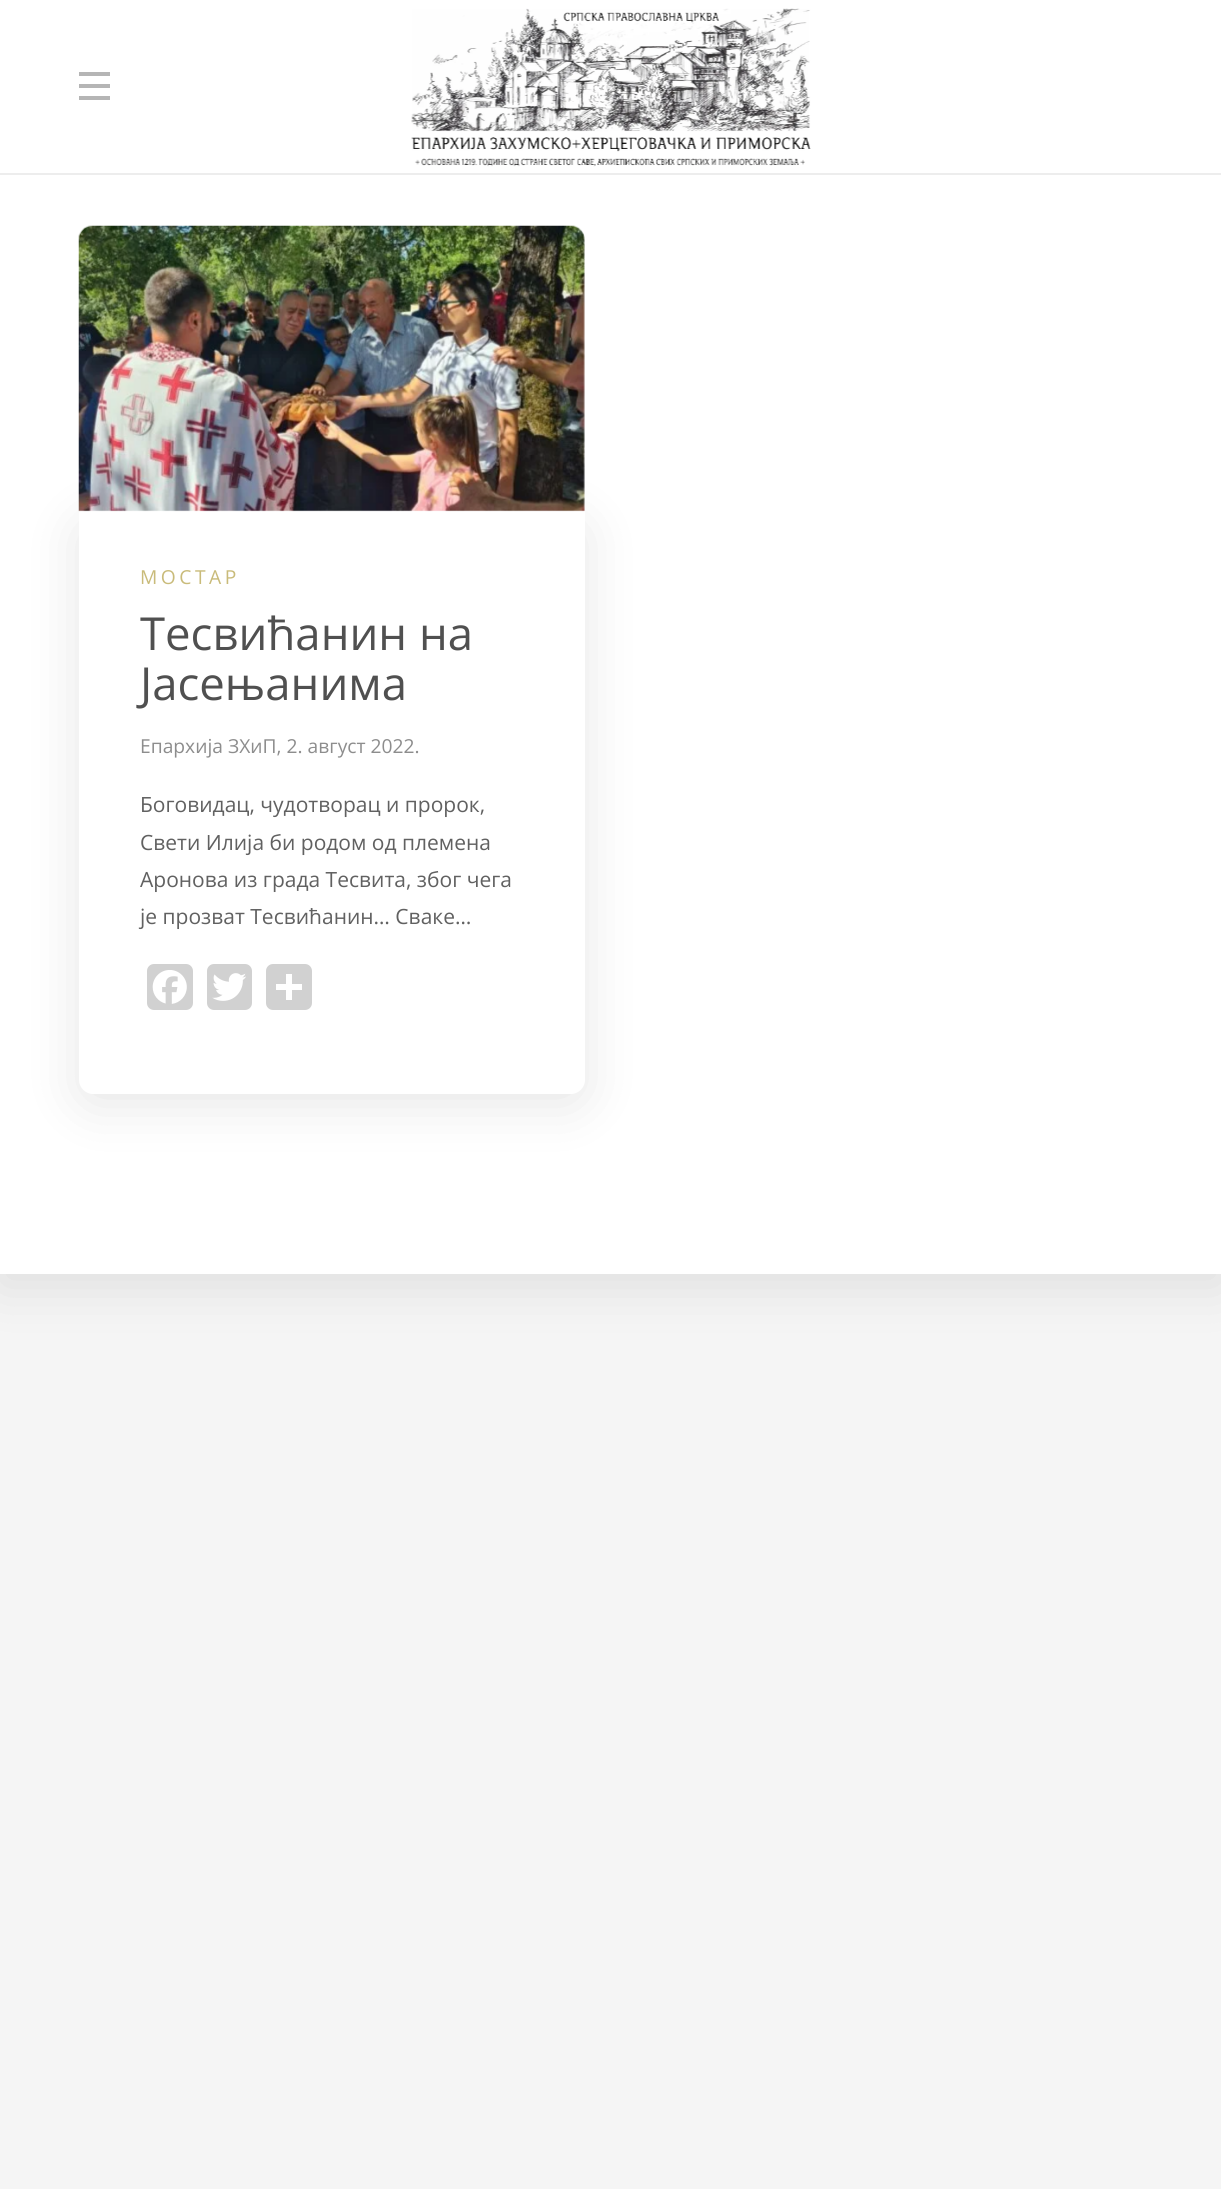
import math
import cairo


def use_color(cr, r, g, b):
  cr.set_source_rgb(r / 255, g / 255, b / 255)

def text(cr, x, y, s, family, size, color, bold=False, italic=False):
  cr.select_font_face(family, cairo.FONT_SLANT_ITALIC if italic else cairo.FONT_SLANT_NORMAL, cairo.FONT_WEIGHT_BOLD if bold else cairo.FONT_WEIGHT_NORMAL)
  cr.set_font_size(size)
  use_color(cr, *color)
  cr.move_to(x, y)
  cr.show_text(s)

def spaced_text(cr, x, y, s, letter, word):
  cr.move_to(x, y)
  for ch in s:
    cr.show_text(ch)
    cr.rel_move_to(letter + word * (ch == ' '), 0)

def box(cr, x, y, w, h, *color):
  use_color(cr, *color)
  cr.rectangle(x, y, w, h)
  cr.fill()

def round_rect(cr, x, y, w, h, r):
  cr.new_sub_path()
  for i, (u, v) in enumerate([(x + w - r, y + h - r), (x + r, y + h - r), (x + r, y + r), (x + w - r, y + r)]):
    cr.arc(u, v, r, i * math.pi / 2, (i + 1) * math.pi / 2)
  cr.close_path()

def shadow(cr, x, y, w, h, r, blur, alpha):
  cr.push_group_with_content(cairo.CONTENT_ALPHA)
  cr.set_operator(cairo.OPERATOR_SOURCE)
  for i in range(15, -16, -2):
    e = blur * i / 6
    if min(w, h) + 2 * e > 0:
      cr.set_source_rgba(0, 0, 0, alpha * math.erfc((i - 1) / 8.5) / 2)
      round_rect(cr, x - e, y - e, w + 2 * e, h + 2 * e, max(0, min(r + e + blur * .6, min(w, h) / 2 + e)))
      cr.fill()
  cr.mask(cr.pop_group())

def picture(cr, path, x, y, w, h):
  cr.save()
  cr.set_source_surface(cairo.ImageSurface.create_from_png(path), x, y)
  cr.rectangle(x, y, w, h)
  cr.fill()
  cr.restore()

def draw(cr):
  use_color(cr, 245, 245, 245)
  cr.paint()
  use_color(cr, 0, 0, 0)
  shadow(cr, 0, 11, 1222, 1274, 0, 26, 0.1)
  box(cr, 0, 0, 1221, 1274, 255, 255, 255)
  box(cr, 0, 173, 1221, 2, 237, 237, 237)
  box(cr, 79, 72, 31, 4, 181, 181, 181)
  box(cr, 79, 84, 31, 4, 181, 181, 181)
  box(cr, 79, 96, 31, 4, 181, 181, 181)
  picture(cr, "img_01.png", 411, 8, 400, 159)
  use_color(cr, 0, 0, 0)
  shadow(cr, 79, 522, 506, 582, 14, 26, 0.1)
  use_color(cr, 255, 255, 255)
  cr.new_path()
  cr.move_to(79, 511)
  cr.line_to(585, 511)
  cr.line_to(585, 1080)
  cr.curve_to(585, 1087.5, 578.5, 1094, 571, 1094)
  cr.line_to(93, 1094)
  cr.curve_to(85.5, 1094, 79, 1087.5, 79, 1080)
  cr.close_path()
  cr.fill()
  picture(cr, "img_02.png", 78, 225, 507, 287)
  use_color(cr, 209, 209, 209)
  round_rect(cr, 147, 964, 46, 46, 7)
  cr.fill()
  picture(cr, "img_03.png", 152, 970, 35, 34)
  round_rect(cr, 207, 964, 45, 46, 7)
  cr.fill()
  picture(cr, "img_04.png", 212, 973, 34, 28)
  round_rect(cr, 266, 964, 46, 46, 7)
  cr.fill()
  box(cr, 286, 974, 6, 26, 255, 255, 255)
  box(cr, 276, 984, 26, 6, 255, 255, 255)
  cr.select_font_face("Open Sans")
  cr.set_font_size(19.25)
  use_color(cr, 201, 187, 122)
  spaced_text(cr, 140, 584, "МОСТАР", 3.5, 0)
  text(cr, 140, 650, "Тесвићанин на", "Open Sans", 45.5, (80, 80, 80))
  text(cr, 140, 700, "Јасењанима", "Open Sans", 45.5, (80, 80, 80))
  text(cr, 140, 753, "Епархија ЗХиП, 2. август 2022.", "Open Sans", 19.25, (141, 141, 141))
  text(cr, 140, 812, "Боговидац, чудотворац и пророк,", "Open Sans", 21, (97, 97, 97))
  text(cr, 140, 850, "Свети Илија би родом од племена", "Open Sans", 21, (97, 97, 97))
  text(cr, 140, 887, "Аронова из града Тесвита, због чега", "Open Sans", 21, (97, 97, 97))
  text(cr, 140, 924, "је прозват Тесвићанин… Сваке…", "Open Sans", 21, (97, 97, 97))


surface = cairo.ImageSurface(cairo.FORMAT_RGB24, 1221, 2189)
cr = cairo.Context(surface)
options = cairo.FontOptions()
options.set_hint_metrics(cairo.HINT_METRICS_OFF)
options.set_hint_style(cairo.HINT_STYLE_NONE)
cr.set_font_options(options)
cr.set_miter_limit(4)
draw(cr)
surface.write_to_png("out.png")
